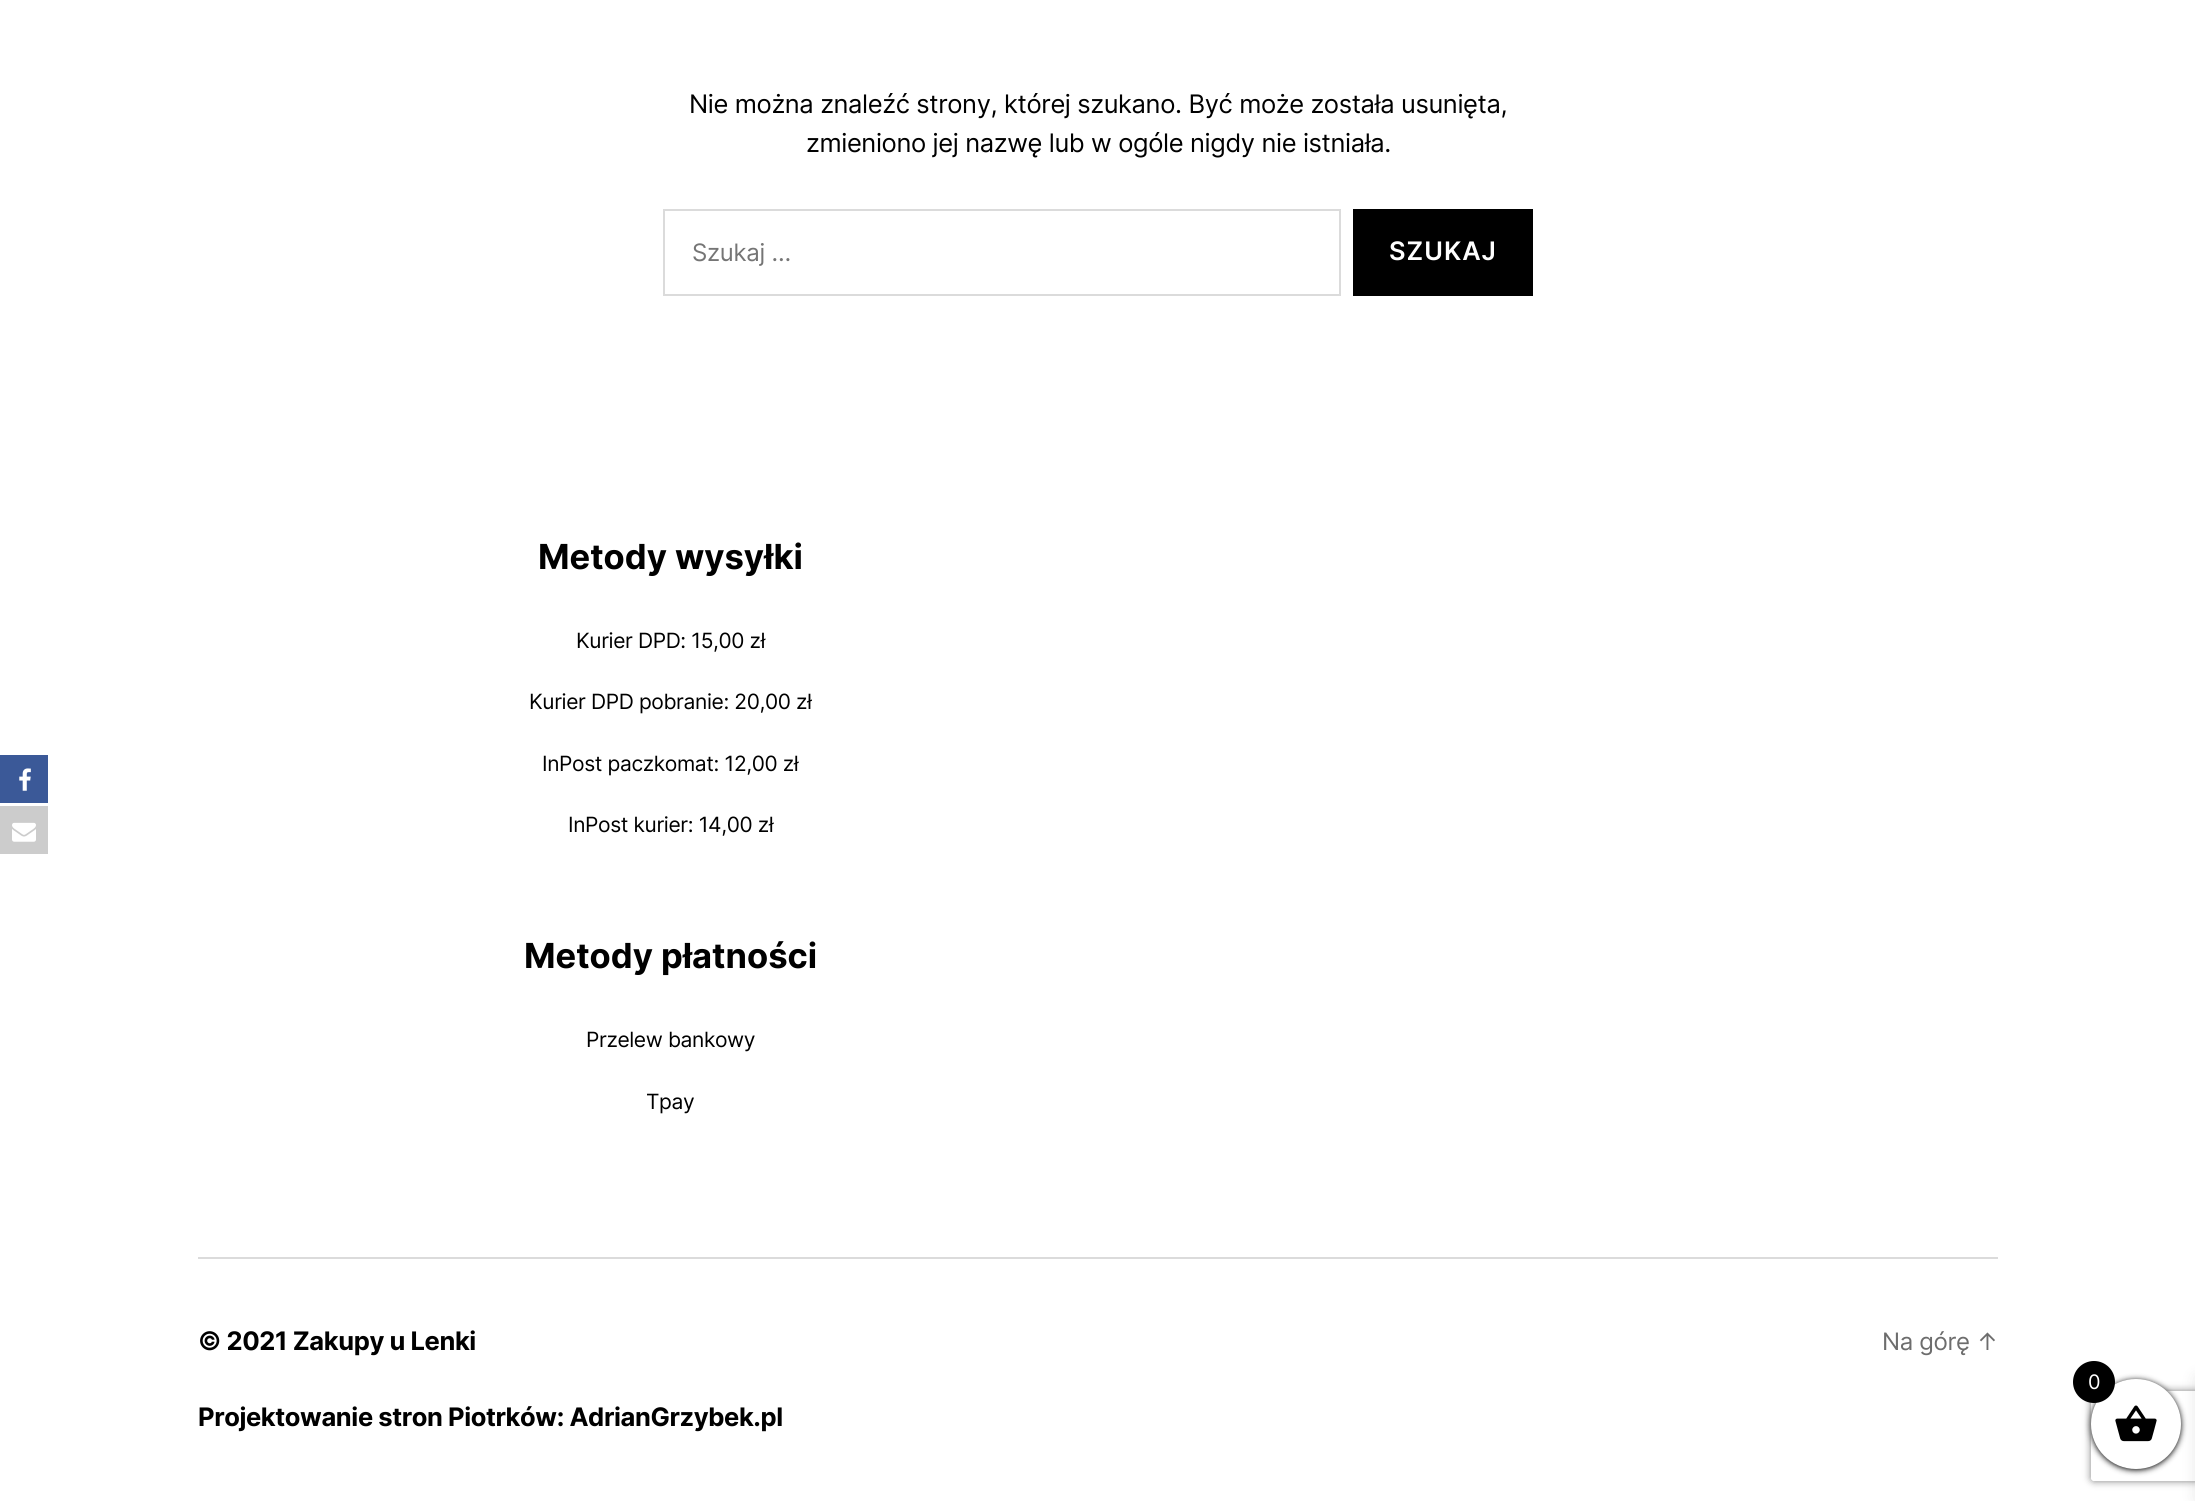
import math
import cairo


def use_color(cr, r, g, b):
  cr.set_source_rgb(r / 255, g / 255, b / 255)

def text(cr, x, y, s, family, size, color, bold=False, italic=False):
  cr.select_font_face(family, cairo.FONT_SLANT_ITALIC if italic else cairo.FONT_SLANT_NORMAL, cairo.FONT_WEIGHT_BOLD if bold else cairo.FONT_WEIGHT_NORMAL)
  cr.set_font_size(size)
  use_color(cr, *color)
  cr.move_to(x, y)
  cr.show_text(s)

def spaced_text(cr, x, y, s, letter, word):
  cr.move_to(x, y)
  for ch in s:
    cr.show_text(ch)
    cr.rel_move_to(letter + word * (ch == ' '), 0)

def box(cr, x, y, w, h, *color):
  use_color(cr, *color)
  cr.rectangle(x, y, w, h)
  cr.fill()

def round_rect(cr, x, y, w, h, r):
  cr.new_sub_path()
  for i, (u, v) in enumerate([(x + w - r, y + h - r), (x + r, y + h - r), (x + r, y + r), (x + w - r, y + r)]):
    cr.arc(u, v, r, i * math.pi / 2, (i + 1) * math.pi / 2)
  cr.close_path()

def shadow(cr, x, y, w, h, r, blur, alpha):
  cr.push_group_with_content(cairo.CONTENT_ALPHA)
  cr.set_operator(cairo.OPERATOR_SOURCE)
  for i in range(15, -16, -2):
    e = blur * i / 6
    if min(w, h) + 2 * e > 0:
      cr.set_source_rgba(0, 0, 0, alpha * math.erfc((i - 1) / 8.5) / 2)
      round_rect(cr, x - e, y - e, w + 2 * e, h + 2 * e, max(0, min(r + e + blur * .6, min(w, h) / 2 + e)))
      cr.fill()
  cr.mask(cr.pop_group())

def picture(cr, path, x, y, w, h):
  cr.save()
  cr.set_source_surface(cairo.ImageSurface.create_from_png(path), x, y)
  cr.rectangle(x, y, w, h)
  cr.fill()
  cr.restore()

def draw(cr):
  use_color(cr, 255, 255, 255)
  cr.paint()
  cr.rectangle(664, 210, 676, 85)
  use_color(cr, 219, 219, 219)
  cr.stroke()
  box(cr, 1353, 209, 180, 87, 0, 0, 0)
  box(cr, 0, 755, 48, 48, 59, 89, 152)
  picture(cr, "img_01.png", 19, 768, 12, 23)
  box(cr, 0, 806, 48, 48, 204, 204, 204)
  picture(cr, "img_02.png", 12, 822, 24, 20)
  box(cr, 198, 1257, 1800, 2, 219, 219, 219)
  use_color(cr, 0, 0, 0)
  shadow(cr, 2091, 1380, 90, 90, 45, 3, 1)
  shadow(cr, 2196, 1377, 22, 123, 0, 7.5, 0.1)
  cr.save()
  cr.set_fill_rule(cairo.FILL_RULE_EVEN_ODD)
  cr.new_path()
  cr.move_to(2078, 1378)
  cr.line_to(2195, 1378)
  cr.line_to(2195, 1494)
  cr.line_to(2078, 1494)
  cr.close_path()
  cr.move_to(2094, 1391)
  cr.line_to(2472, 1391)
  cr.curve_to(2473.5, 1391, 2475, 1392.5, 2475, 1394)
  cr.line_to(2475, 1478)
  cr.curve_to(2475, 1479.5, 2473.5, 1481, 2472, 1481)
  cr.line_to(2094, 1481)
  cr.curve_to(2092.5, 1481, 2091, 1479.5, 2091, 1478)
  cr.line_to(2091, 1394)
  cr.curve_to(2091, 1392.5, 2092.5, 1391, 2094, 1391)
  cr.close_path()
  cr.clip()
  use_color(cr, 128, 128, 128)
  shadow(cr, 2091, 1391, 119, 90, 3, 4, 1)
  cr.restore()
  use_color(cr, 255, 255, 255)
  cr.arc(2136, 1424, 45, 0, 2 * math.pi)
  cr.fill()
  use_color(cr, 0, 0, 0)
  cr.arc(2094, 1382, 21, 0, 2 * math.pi)
  cr.fill()
  picture(cr, "img_03.png", 2115, 1405, 42, 37)
  cr.select_font_face("Inter")
  cr.set_font_size(25.5)
  spaced_text(cr, 689, 113, "Nie można znaleźć strony, której szukano. Być może została usunięta,", -0.38, 0)
  spaced_text(cr, 806, 152, "zmieniono jej nazwę lub w ogóle nigdy nie istniała.", -0.38, 0)
  cr.set_font_size(24)
  use_color(cr, 117, 117, 117)
  spaced_text(cr, 692, 261, "Szukaj …", -0.25, 0)
  cr.select_font_face("Inter SemiBold")
  cr.set_font_size(25.5)
  use_color(cr, 255, 255, 255)
  spaced_text(cr, 1389, 260, "SZUKAJ", 1, 0)
  text(cr, 538, 569, "Metody wysyłki", "Inter", 34.5, (0, 0, 0), bold=True)
  cr.select_font_face("Inter")
  cr.set_font_size(21)
  spaced_text(cr, 576, 648, "Kurier DPD: 15,00 zł", -0.38, 0)
  spaced_text(cr, 529, 709, "Kurier DPD pobranie: 20,00 zł", -0.38, 0)
  spaced_text(cr, 542, 771, "InPost paczkomat: 12,00 zł", -0.38, 0)
  spaced_text(cr, 568, 832, "InPost kurier: 14,00 zł", -0.38, 0)
  text(cr, 524, 968, "Metody płatności", "Inter", 34.5, (0, 0, 0), bold=True)
  cr.select_font_face("Inter")
  cr.set_font_size(21)
  spaced_text(cr, 586, 1047, "Przelew bankowy", -0.38, 0)
  spaced_text(cr, 646, 1109, "Tpay", -0.38, 0)
  cr.select_font_face("Inter", cairo.FONT_SLANT_NORMAL, cairo.FONT_WEIGHT_BOLD)
  cr.set_font_size(25.5)
  spaced_text(cr, 198, 1350, "© 2021 Zakupy u Lenki", -0.38, 0)
  spaced_text(cr, 198, 1426, "Projektowanie stron Piotrków: AdrianGrzybek.pl", -0.38, 0)
  cr.select_font_face("Inter")
  cr.set_font_size(24)
  use_color(cr, 109, 109, 109)
  spaced_text(cr, 1882, 1350, "Na górę ↑", -0.38, 0)
  cr.set_font_size(20)
  use_color(cr, 255, 255, 255)
  spaced_text(cr, 2088, 1389, "0", -0.38, 0)


surface = cairo.ImageSurface(cairo.FORMAT_RGB24, 2195, 1501)
cr = cairo.Context(surface)
options = cairo.FontOptions()
options.set_hint_metrics(cairo.HINT_METRICS_OFF)
options.set_hint_style(cairo.HINT_STYLE_NONE)
cr.set_font_options(options)
cr.set_miter_limit(4)
draw(cr)
surface.write_to_png("out.png")
